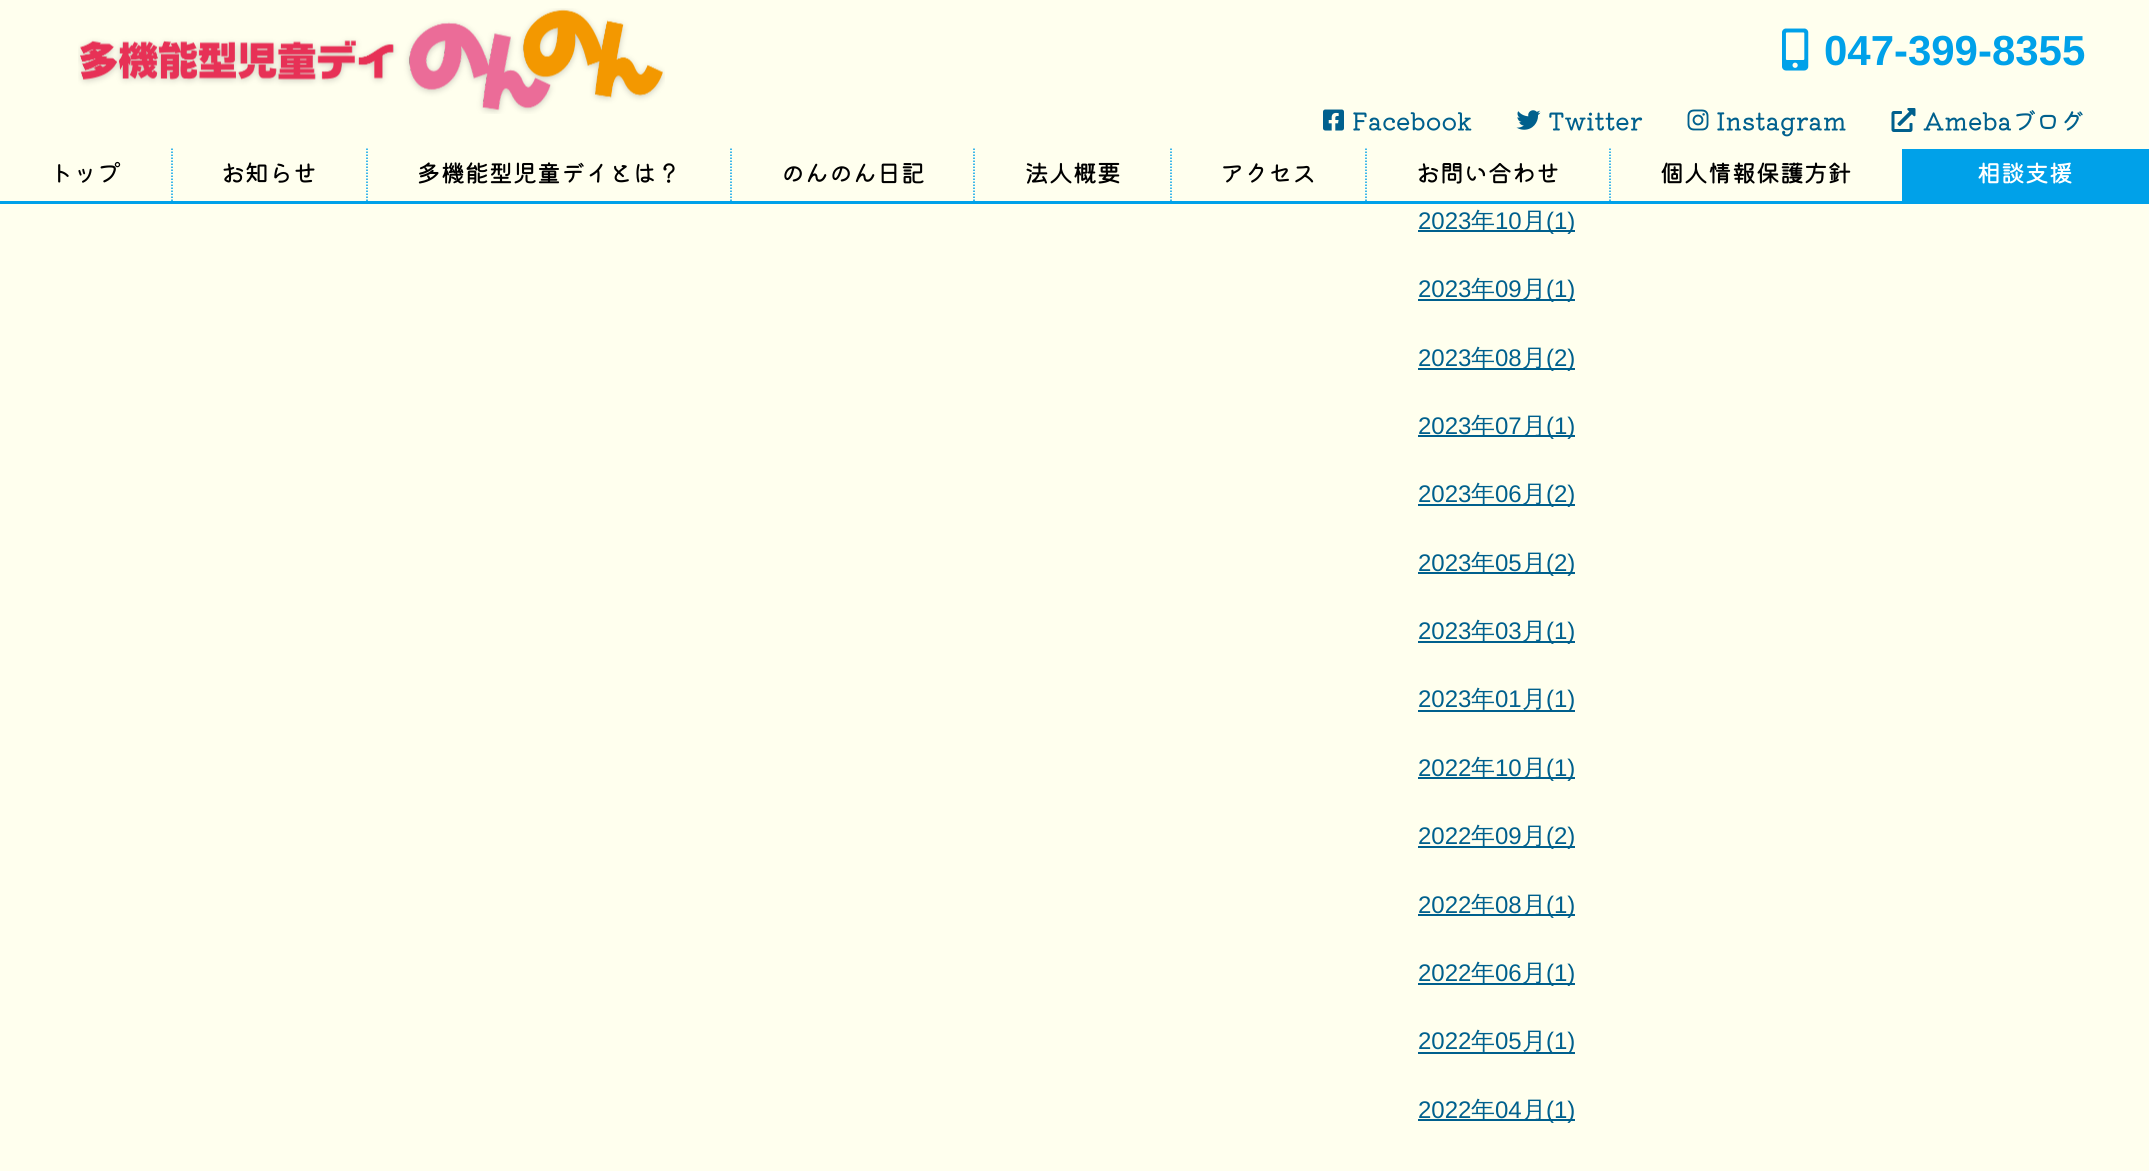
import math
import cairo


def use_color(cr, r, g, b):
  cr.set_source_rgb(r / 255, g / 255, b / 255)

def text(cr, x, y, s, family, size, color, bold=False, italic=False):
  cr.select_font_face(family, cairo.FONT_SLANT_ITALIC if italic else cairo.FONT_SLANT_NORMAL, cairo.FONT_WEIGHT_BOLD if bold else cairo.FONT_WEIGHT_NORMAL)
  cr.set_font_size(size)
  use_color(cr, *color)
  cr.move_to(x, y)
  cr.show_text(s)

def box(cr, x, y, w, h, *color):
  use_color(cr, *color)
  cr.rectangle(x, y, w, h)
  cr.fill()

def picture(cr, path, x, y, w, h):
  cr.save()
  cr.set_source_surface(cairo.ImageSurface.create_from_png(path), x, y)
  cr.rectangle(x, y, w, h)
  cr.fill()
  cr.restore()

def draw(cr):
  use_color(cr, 255, 255, 238)
  cr.paint()
  box(cr, 0, 201, 2149, 3, 0, 161, 233)
  picture(cr, "img_01.png", 78, 8, 587, 106)
  picture(cr, "img_02.png", 1782, 28, 27, 43)
  picture(cr, "img_03.png", 1323, 109, 21, 22)
  picture(cr, "img_04.png", 1516, 110, 25, 20)
  picture(cr, "img_05.png", 1687, 109, 22, 22)
  picture(cr, "img_06.png", 1891, 108, 25, 24)
  cr.new_path()
  cr.move_to(172, 148.5)
  cr.line_to(172, 201)
  cr.set_line_width(1.5)
  cr.set_dash([1.5, 1.5])
  cr.stroke()
  cr.new_path()
  cr.move_to(367, 148.5)
  cr.line_to(367, 201)
  cr.stroke()
  cr.new_path()
  cr.move_to(731, 148.5)
  cr.line_to(731, 201)
  cr.stroke()
  cr.new_path()
  cr.move_to(974, 148.5)
  cr.line_to(974, 201)
  cr.stroke()
  cr.new_path()
  cr.move_to(1171, 148.5)
  cr.line_to(1171, 201)
  cr.stroke()
  cr.new_path()
  cr.move_to(1366, 148.5)
  cr.line_to(1366, 201)
  cr.stroke()
  cr.new_path()
  cr.move_to(1610, 148.5)
  cr.line_to(1610, 201)
  cr.stroke()
  box(cr, 1902, 149, 247, 52, 0, 161, 233)
  box(cr, 1418, 230, 157, 2, 0, 96, 141)
  box(cr, 1418, 299, 157, 2, 0, 96, 141)
  box(cr, 1418, 368, 157, 2, 0, 96, 141)
  box(cr, 1418, 435, 157, 2, 0, 96, 141)
  box(cr, 1418, 504, 157, 2, 0, 96, 141)
  box(cr, 1418, 572, 157, 2, 0, 96, 141)
  box(cr, 1418, 641, 157, 2, 0, 96, 141)
  box(cr, 1418, 710, 157, 2, 0, 96, 141)
  box(cr, 1418, 777, 157, 2, 0, 96, 141)
  box(cr, 1418, 846, 157, 2, 0, 96, 141)
  box(cr, 1418, 914, 157, 2, 0, 96, 141)
  box(cr, 1418, 983, 157, 2, 0, 96, 141)
  box(cr, 1418, 1052, 157, 2, 0, 96, 141)
  box(cr, 1418, 1119, 157, 2, 0, 96, 141)
  text(cr, 1824, 65, "047-399-8355", "Ramabhadra", 42, (0, 161, 233))
  text(cr, 1352, 130, "Facebook", "Kiwi Maru Medium", 24, (0, 96, 141))
  text(cr, 1548, 130, "Twitter", "Kiwi Maru Medium", 24, (0, 96, 141))
  text(cr, 1716, 130, "Instagram", "Kiwi Maru Medium", 24, (0, 96, 141))
  text(cr, 1923, 130, "Amebaブログ", "Kiwi Maru Medium", 24, (0, 96, 141))
  text(cr, 49, 182, "トップ", "Kiwi Maru Medium", 24, (0, 0, 0))
  text(cr, 221, 182, "お知らせ", "Kiwi Maru Medium", 24, (0, 0, 0))
  text(cr, 417, 182, "多機能型児童デイとは？", "Kiwi Maru Medium", 24, (0, 0, 0))
  text(cr, 781, 182, "のんのん日記", "Kiwi Maru Medium", 24, (0, 0, 0))
  text(cr, 1025, 182, "法人概要", "Kiwi Maru Medium", 24, (0, 0, 0))
  text(cr, 1220, 182, "アクセス", "Kiwi Maru Medium", 24, (0, 0, 0))
  text(cr, 1416, 182, "お問い合わせ", "Kiwi Maru Medium", 24, (0, 0, 0))
  text(cr, 1660, 182, "個人情報保護方針", "Kiwi Maru Medium", 24, (0, 0, 0))
  text(cr, 1977, 182, "相談支援", "Kiwi Maru Medium", 24, (255, 255, 255))
  text(cr, 1418, 229, "2023", "Liberation Sans", 24, (0, 96, 141))
  text(cr, 1471, 229, "年", "WenQuanYi Zen Hei Medium", 24, (0, 96, 141))
  text(cr, 1495, 229, "10", "Liberation Sans", 24, (0, 96, 141))
  text(cr, 1522, 229, "月", "WenQuanYi Zen Hei Medium", 24, (0, 96, 141))
  text(cr, 1546, 229, "(1)", "Liberation Sans", 24, (0, 96, 141))
  text(cr, 1418, 297, "2023", "Liberation Sans", 24, (0, 96, 141))
  text(cr, 1471, 297, "年", "WenQuanYi Zen Hei Medium", 24, (0, 96, 141))
  text(cr, 1495, 297, "09", "Liberation Sans", 24, (0, 96, 141))
  text(cr, 1522, 297, "月", "WenQuanYi Zen Hei Medium", 24, (0, 96, 141))
  text(cr, 1546, 297, "(1)", "Liberation Sans", 24, (0, 96, 141))
  text(cr, 1418, 366, "2023", "Liberation Sans", 24, (0, 96, 141))
  text(cr, 1471, 366, "年", "WenQuanYi Zen Hei Medium", 24, (0, 96, 141))
  text(cr, 1495, 366, "08", "Liberation Sans", 24, (0, 96, 141))
  text(cr, 1522, 366, "月", "WenQuanYi Zen Hei Medium", 24, (0, 96, 141))
  text(cr, 1546, 366, "(2)", "Liberation Sans", 24, (0, 96, 141))
  text(cr, 1418, 434, "2023", "Liberation Sans", 24, (0, 96, 141))
  text(cr, 1471, 434, "年", "WenQuanYi Zen Hei Medium", 24, (0, 96, 141))
  text(cr, 1495, 434, "07", "Liberation Sans", 24, (0, 96, 141))
  text(cr, 1522, 434, "月", "WenQuanYi Zen Hei Medium", 24, (0, 96, 141))
  text(cr, 1546, 434, "(1)", "Liberation Sans", 24, (0, 96, 141))
  text(cr, 1418, 502, "2023", "Liberation Sans", 24, (0, 96, 141))
  text(cr, 1471, 502, "年", "WenQuanYi Zen Hei Medium", 24, (0, 96, 141))
  text(cr, 1495, 502, "06", "Liberation Sans", 24, (0, 96, 141))
  text(cr, 1522, 502, "月", "WenQuanYi Zen Hei Medium", 24, (0, 96, 141))
  text(cr, 1546, 502, "(2)", "Liberation Sans", 24, (0, 96, 141))
  text(cr, 1418, 571, "2023", "Liberation Sans", 24, (0, 96, 141))
  text(cr, 1471, 571, "年", "WenQuanYi Zen Hei Medium", 24, (0, 96, 141))
  text(cr, 1495, 571, "05", "Liberation Sans", 24, (0, 96, 141))
  text(cr, 1522, 571, "月", "WenQuanYi Zen Hei Medium", 24, (0, 96, 141))
  text(cr, 1546, 571, "(2)", "Liberation Sans", 24, (0, 96, 141))
  text(cr, 1418, 639, "2023", "Liberation Sans", 24, (0, 96, 141))
  text(cr, 1471, 639, "年", "WenQuanYi Zen Hei Medium", 24, (0, 96, 141))
  text(cr, 1495, 639, "03", "Liberation Sans", 24, (0, 96, 141))
  text(cr, 1522, 639, "月", "WenQuanYi Zen Hei Medium", 24, (0, 96, 141))
  text(cr, 1546, 639, "(1)", "Liberation Sans", 24, (0, 96, 141))
  text(cr, 1418, 707, "2023", "Liberation Sans", 24, (0, 96, 141))
  text(cr, 1471, 707, "年", "WenQuanYi Zen Hei Medium", 24, (0, 96, 141))
  text(cr, 1495, 707, "01", "Liberation Sans", 24, (0, 96, 141))
  text(cr, 1522, 707, "月", "WenQuanYi Zen Hei Medium", 24, (0, 96, 141))
  text(cr, 1546, 707, "(1)", "Liberation Sans", 24, (0, 96, 141))
  text(cr, 1418, 776, "2022", "Liberation Sans", 24, (0, 96, 141))
  text(cr, 1471, 776, "年", "WenQuanYi Zen Hei Medium", 24, (0, 96, 141))
  text(cr, 1495, 776, "10", "Liberation Sans", 24, (0, 96, 141))
  text(cr, 1522, 776, "月", "WenQuanYi Zen Hei Medium", 24, (0, 96, 141))
  text(cr, 1546, 776, "(1)", "Liberation Sans", 24, (0, 96, 141))
  text(cr, 1418, 844, "2022", "Liberation Sans", 24, (0, 96, 141))
  text(cr, 1471, 844, "年", "WenQuanYi Zen Hei Medium", 24, (0, 96, 141))
  text(cr, 1495, 844, "09", "Liberation Sans", 24, (0, 96, 141))
  text(cr, 1522, 844, "月", "WenQuanYi Zen Hei Medium", 24, (0, 96, 141))
  text(cr, 1546, 844, "(2)", "Liberation Sans", 24, (0, 96, 141))
  text(cr, 1418, 913, "2022", "Liberation Sans", 24, (0, 96, 141))
  text(cr, 1471, 913, "年", "WenQuanYi Zen Hei Medium", 24, (0, 96, 141))
  text(cr, 1495, 913, "08", "Liberation Sans", 24, (0, 96, 141))
  text(cr, 1522, 913, "月", "WenQuanYi Zen Hei Medium", 24, (0, 96, 141))
  text(cr, 1546, 913, "(1)", "Liberation Sans", 24, (0, 96, 141))
  text(cr, 1418, 981, "2022", "Liberation Sans", 24, (0, 96, 141))
  text(cr, 1471, 981, "年", "WenQuanYi Zen Hei Medium", 24, (0, 96, 141))
  text(cr, 1495, 981, "06", "Liberation Sans", 24, (0, 96, 141))
  text(cr, 1522, 981, "月", "WenQuanYi Zen Hei Medium", 24, (0, 96, 141))
  text(cr, 1546, 981, "(1)", "Liberation Sans", 24, (0, 96, 141))
  text(cr, 1418, 1049, "2022", "Liberation Sans", 24, (0, 96, 141))
  text(cr, 1471, 1049, "年", "WenQuanYi Zen Hei Medium", 24, (0, 96, 141))
  text(cr, 1495, 1049, "05", "Liberation Sans", 24, (0, 96, 141))
  text(cr, 1522, 1049, "月", "WenQuanYi Zen Hei Medium", 24, (0, 96, 141))
  text(cr, 1546, 1049, "(1)", "Liberation Sans", 24, (0, 96, 141))
  text(cr, 1418, 1118, "2022", "Liberation Sans", 24, (0, 96, 141))
  text(cr, 1471, 1118, "年", "WenQuanYi Zen Hei Medium", 24, (0, 96, 141))
  text(cr, 1495, 1118, "04", "Liberation Sans", 24, (0, 96, 141))
  text(cr, 1522, 1118, "月", "WenQuanYi Zen Hei Medium", 24, (0, 96, 141))
  text(cr, 1546, 1118, "(1)", "Liberation Sans", 24, (0, 96, 141))


surface = cairo.ImageSurface(cairo.FORMAT_RGB24, 2149, 1171)
cr = cairo.Context(surface)
options = cairo.FontOptions()
options.set_hint_metrics(cairo.HINT_METRICS_OFF)
options.set_hint_style(cairo.HINT_STYLE_NONE)
cr.set_font_options(options)
cr.set_miter_limit(4)
draw(cr)
surface.write_to_png("out.png")
